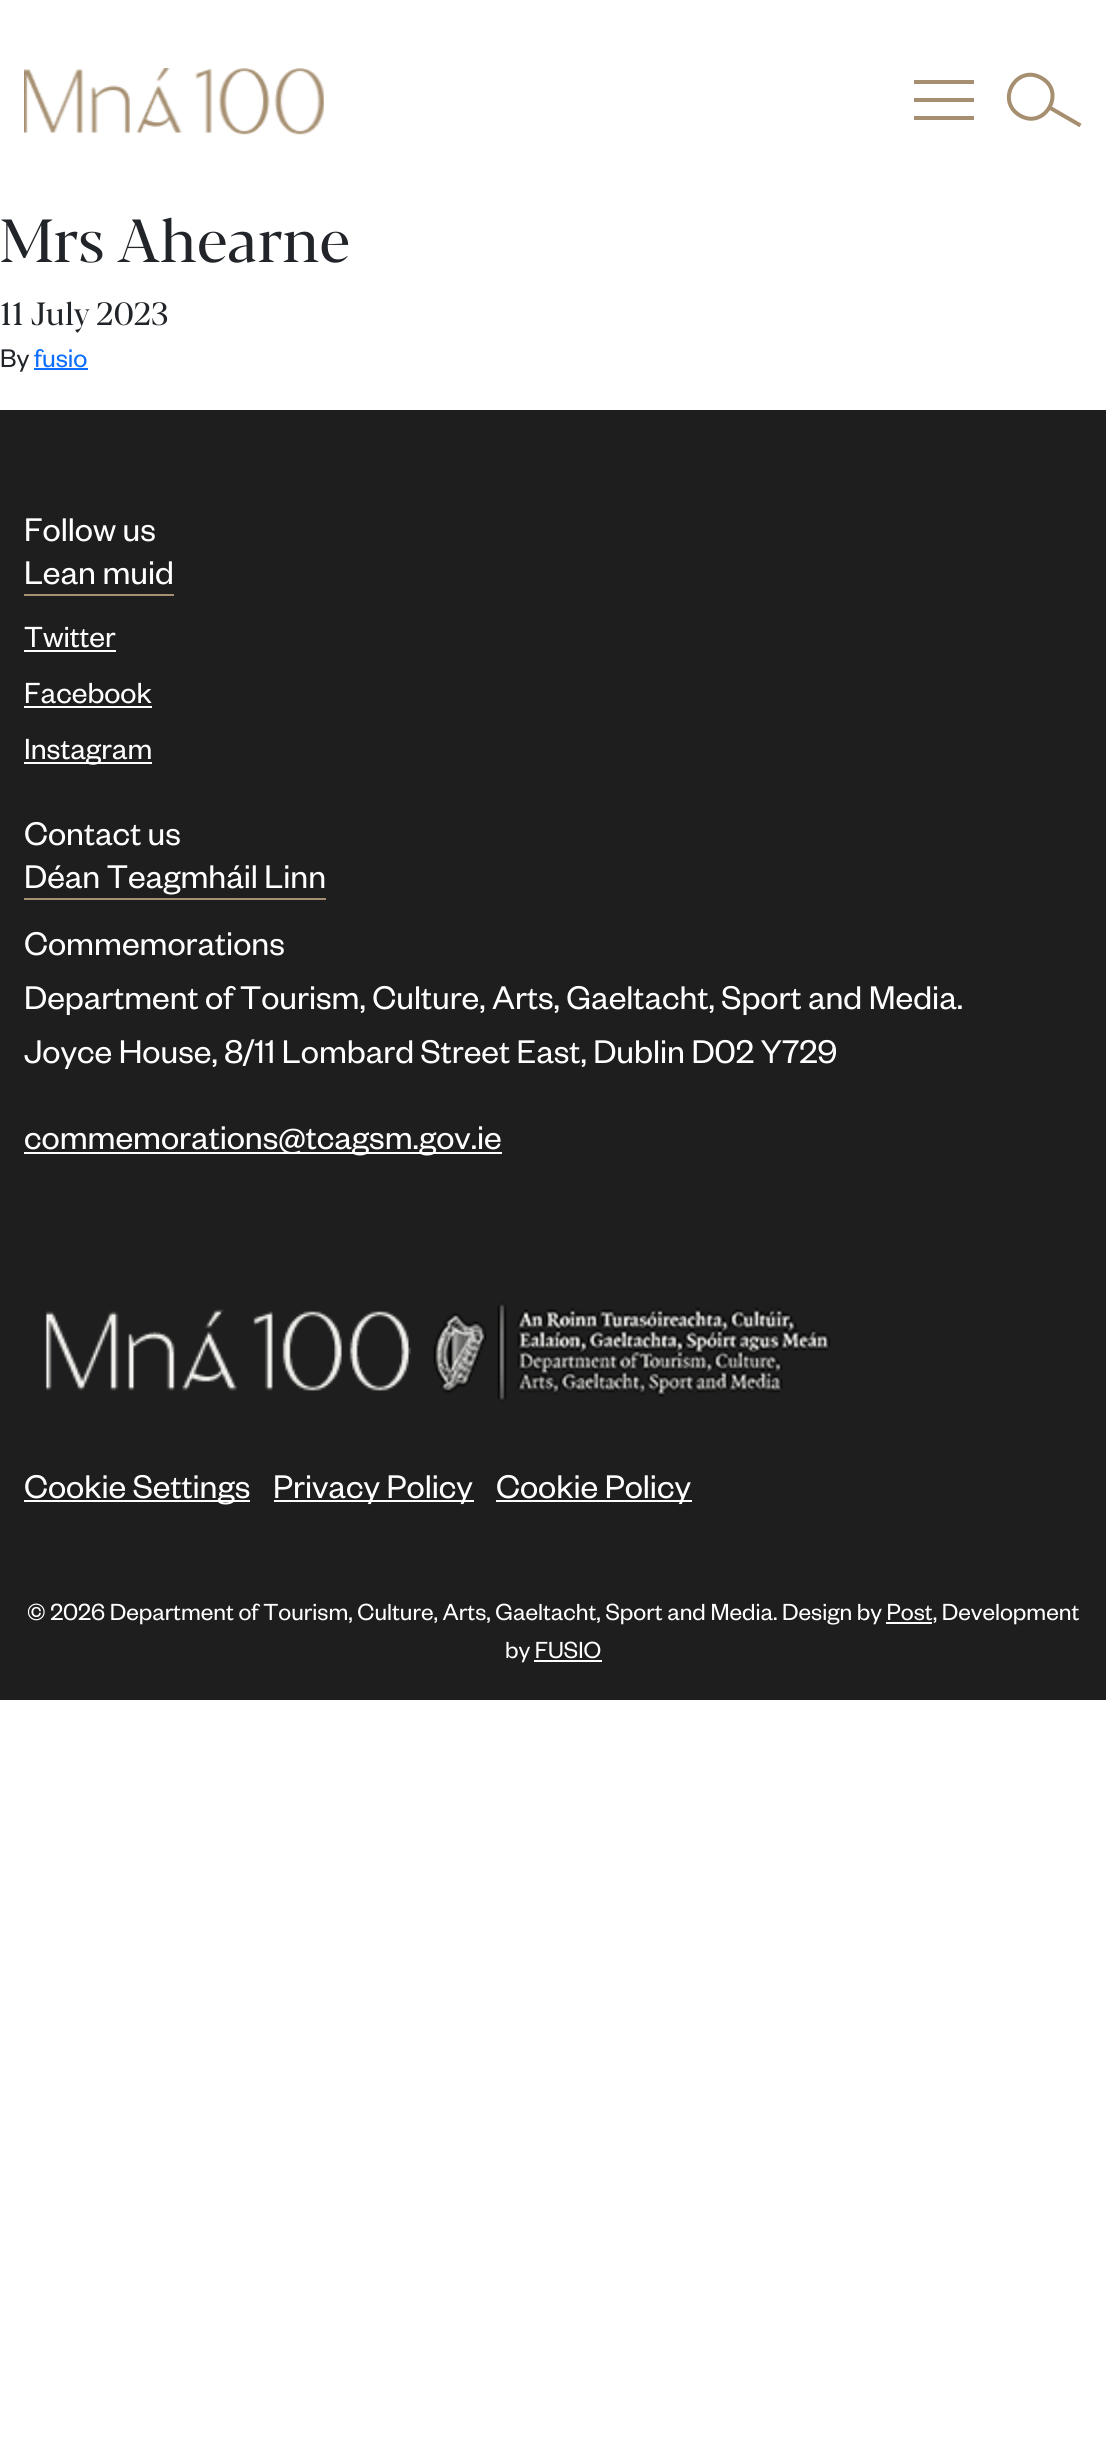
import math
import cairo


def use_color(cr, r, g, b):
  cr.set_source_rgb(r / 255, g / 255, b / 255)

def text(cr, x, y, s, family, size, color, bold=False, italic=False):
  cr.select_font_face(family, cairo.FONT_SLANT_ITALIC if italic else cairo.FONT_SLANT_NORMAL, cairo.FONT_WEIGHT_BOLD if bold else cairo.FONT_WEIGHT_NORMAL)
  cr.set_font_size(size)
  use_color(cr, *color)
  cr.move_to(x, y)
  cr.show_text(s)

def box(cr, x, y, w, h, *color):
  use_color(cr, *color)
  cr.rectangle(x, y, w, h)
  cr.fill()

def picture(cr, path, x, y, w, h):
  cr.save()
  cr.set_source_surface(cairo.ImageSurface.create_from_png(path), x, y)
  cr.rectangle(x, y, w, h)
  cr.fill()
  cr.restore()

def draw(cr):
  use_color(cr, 255, 255, 255)
  cr.paint()
  picture(cr, "img_01.png", 24, 68, 300, 67)
  box(cr, 914, 80, 60, 4, 166, 143, 113)
  box(cr, 914, 98, 60, 4, 166, 143, 113)
  box(cr, 914, 116, 60, 4, 166, 143, 113)
  cr.new_path()
  cr.move_to(1041.5, 78)
  cr.curve_to(1066.5, 92, 1044.5, 130, 1020, 115.5)
  cr.curve_to(995, 101, 1016.5, 63.5, 1041.5, 78)
  cr.close_path()
  cr.set_line_width(4)
  cr.stroke()
  cr.new_path()
  cr.move_to(1049.5, 107.5)
  cr.line_to(1080.5, 125.5)
  cr.stroke()
  box(cr, 34, 368, 54, 2, 13, 110, 253)
  box(cr, 0, 410, 1106, 1290, 30, 30, 30)
  box(cr, 24, 594, 150, 2, 166, 143, 113)
  box(cr, 24, 650, 92, 2, 255, 255, 255)
  box(cr, 24, 706, 128, 2, 255, 255, 255)
  box(cr, 24, 762, 128, 2, 255, 255, 255)
  box(cr, 24, 898, 302, 2, 166, 143, 113)
  box(cr, 24, 1152, 478, 2, 255, 255, 255)
  picture(cr, "img_02.png", 45, 1309, 367, 82)
  picture(cr, "img_03.png", 433, 1302, 398, 100)
  box(cr, 24, 1500, 226, 2, 255, 255, 255)
  box(cr, 274, 1500, 200, 2, 255, 255, 255)
  box(cr, 496, 1500, 196, 2, 255, 255, 255)
  box(cr, 886, 1622, 46, 2, 255, 255, 255)
  box(cr, 534, 1660, 68, 2, 255, 255, 255)
  text(cr, 0, 262, "Mrs Ahearne", "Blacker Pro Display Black", 60.5, (33, 37, 41))
  text(cr, 0, 325, "11 July 2023", "Blacker Pro Display Black", 32, (33, 37, 41))
  text(cr, 0, 367, "By", "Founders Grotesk", 28, (33, 37, 41))
  text(cr, 34, 367, "fusio", "Founders Grotesk", 28, (13, 110, 253))
  text(cr, 24, 541, "Follow us", "Founders Grotesk", 36, (255, 255, 255))
  text(cr, 24, 584, "Lean muid", "Founders Grotesk", 36, (255, 255, 255))
  text(cr, 24, 647, "Twitter", "Founders Grotesk", 32, (255, 255, 255))
  text(cr, 24, 703, "Facebook", "Founders Grotesk", 32, (255, 255, 255))
  text(cr, 24, 759, "Instagram", "Founders Grotesk", 32, (255, 255, 255))
  text(cr, 24, 845, "Contact us", "Founders Grotesk", 36, (255, 255, 255))
  text(cr, 24, 888, "Déan Teagmháil Linn", "Founders Grotesk", 36, (255, 255, 255))
  text(cr, 24, 955, "Commemorations", "Founders Grotesk", 36, (255, 255, 255))
  text(cr, 24, 1009, "Department of Tourism, Culture, Arts, Gaeltacht, Sport and Media.", "Founders Grotesk", 36, (255, 255, 255))
  text(cr, 24, 1063, "Joyce House, 8/11 Lombard Street East, Dublin D02 Y729", "Founders Grotesk", 36, (255, 255, 255))
  text(cr, 24, 1149, "commemorations@tcagsm.gov.ie", "Founders Grotesk", 36, (255, 255, 255))
  text(cr, 24, 1498, "Cookie Settings", "Founders Grotesk", 36, (255, 255, 255))
  text(cr, 273, 1498, "Privacy Policy", "Founders Grotesk", 36, (255, 255, 255))
  text(cr, 496, 1498, "Cookie Policy", "Founders Grotesk", 36, (255, 255, 255))
  text(cr, 27, 1620, "© 2026 Department of Tourism, Culture, Arts, Gaeltacht, Sport and Media. Design by Post, Development", "Founders Grotesk", 25.6, (255, 255, 255))
  text(cr, 505, 1658, "by FUSIO", "Founders Grotesk", 25.6, (255, 255, 255))


surface = cairo.ImageSurface(cairo.FORMAT_RGB24, 1106, 2438)
cr = cairo.Context(surface)
options = cairo.FontOptions()
options.set_hint_metrics(cairo.HINT_METRICS_OFF)
options.set_hint_style(cairo.HINT_STYLE_NONE)
cr.set_font_options(options)
cr.set_miter_limit(4)
draw(cr)
surface.write_to_png("out.png")
